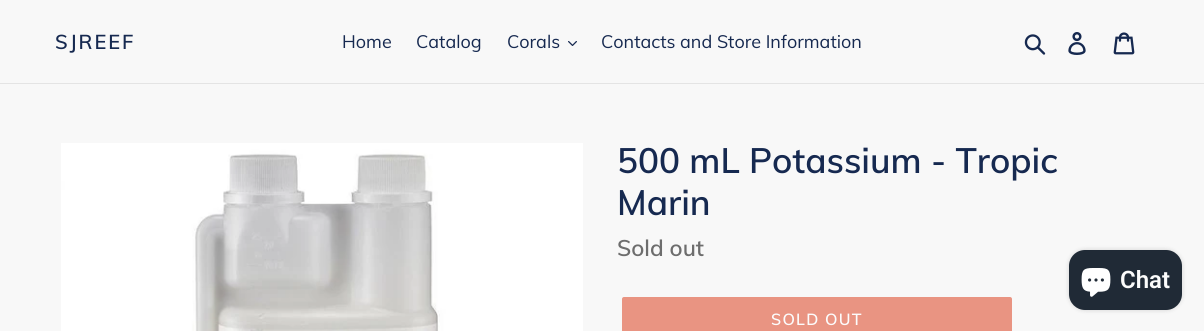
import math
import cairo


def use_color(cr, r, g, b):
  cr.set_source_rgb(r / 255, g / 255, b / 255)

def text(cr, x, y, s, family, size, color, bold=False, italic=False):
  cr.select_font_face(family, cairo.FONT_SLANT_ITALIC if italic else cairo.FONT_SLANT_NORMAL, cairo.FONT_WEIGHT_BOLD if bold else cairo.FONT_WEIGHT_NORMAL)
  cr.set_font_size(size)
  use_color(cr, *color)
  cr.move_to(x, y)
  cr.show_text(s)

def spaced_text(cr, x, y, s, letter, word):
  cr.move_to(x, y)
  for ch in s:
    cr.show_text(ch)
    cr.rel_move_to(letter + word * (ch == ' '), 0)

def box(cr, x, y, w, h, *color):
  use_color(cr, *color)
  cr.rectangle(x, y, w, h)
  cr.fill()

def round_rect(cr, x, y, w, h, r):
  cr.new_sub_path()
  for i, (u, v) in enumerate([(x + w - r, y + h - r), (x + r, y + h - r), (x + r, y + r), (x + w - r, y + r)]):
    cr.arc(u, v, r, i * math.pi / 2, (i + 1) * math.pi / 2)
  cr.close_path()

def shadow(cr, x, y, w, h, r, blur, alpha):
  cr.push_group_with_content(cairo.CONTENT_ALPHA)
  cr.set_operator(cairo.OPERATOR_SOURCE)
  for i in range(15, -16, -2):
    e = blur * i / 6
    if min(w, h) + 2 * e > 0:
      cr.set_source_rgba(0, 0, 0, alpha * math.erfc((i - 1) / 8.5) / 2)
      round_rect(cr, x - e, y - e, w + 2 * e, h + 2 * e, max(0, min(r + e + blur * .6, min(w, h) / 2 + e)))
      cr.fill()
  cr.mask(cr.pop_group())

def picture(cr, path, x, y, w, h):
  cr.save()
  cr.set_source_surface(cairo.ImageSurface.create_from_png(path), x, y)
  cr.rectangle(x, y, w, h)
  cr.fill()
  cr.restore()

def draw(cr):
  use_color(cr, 248, 248, 248)
  cr.paint()
  box(cr, 0, 83, 1204, 1, 228, 228, 228)
  picture(cr, "img_01.png", 568, 41, 9, 5)
  picture(cr, "img_02.png", 1024, 34, 22, 21)
  picture(cr, "img_03.png", 1068, 32, 18, 23)
  picture(cr, "img_04.png", 1113, 32, 22, 23)
  picture(cr, "img_05.png", 61, 143, 522, 188)
  use_color(cr, 233, 148, 130)
  round_rect(cr, 622, 297, 390, 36, 2)
  cr.fill()
  use_color(cr, 0, 0, 0)
  shadow(cr, 1069, 250, 113, 60, 16, 2.5, 0.15)
  use_color(cr, 32, 42, 54)
  round_rect(cr, 1069, 250, 113, 60, 16)
  cr.fill()
  picture(cr, "img_06.png", 1081, 268, 30, 29)
  cr.select_font_face("Muli SemiBold")
  cr.set_font_size(20)
  use_color(cr, 22, 41, 80)
  spaced_text(cr, 55, 49, "SJREEF", 2, 0)
  text(cr, 342, 48, "Home", "Muli", 18, (22, 41, 80))
  text(cr, 416, 48, "Catalog", "Muli", 18, (22, 41, 80))
  text(cr, 507, 48, "Corals", "Muli", 18, (22, 41, 80))
  text(cr, 601, 48, "Contacts and Store Information", "Muli", 18, (22, 41, 80))
  text(cr, 617, 173, "500 mL Potassium - Tropic", "Muli SemiBold", 35, (22, 41, 80))
  text(cr, 617, 215, "Marin", "Muli SemiBold", 35, (22, 41, 80))
  text(cr, 617, 256, "Sold out", "Muli SemiBold", 22.5, (109, 109, 109))
  cr.set_font_size(16)
  use_color(cr, 252, 252, 252)
  spaced_text(cr, 771, 325, "SOLD OUT", 1.25, 0)
  text(cr, 1120, 288, "Chat", "Roboto SemiBold", 24, (252, 252, 252))


surface = cairo.ImageSurface(cairo.FORMAT_RGB24, 1204, 331)
cr = cairo.Context(surface)
options = cairo.FontOptions()
options.set_hint_metrics(cairo.HINT_METRICS_OFF)
options.set_hint_style(cairo.HINT_STYLE_NONE)
cr.set_font_options(options)
cr.set_miter_limit(4)
draw(cr)
surface.write_to_png("out.png")
